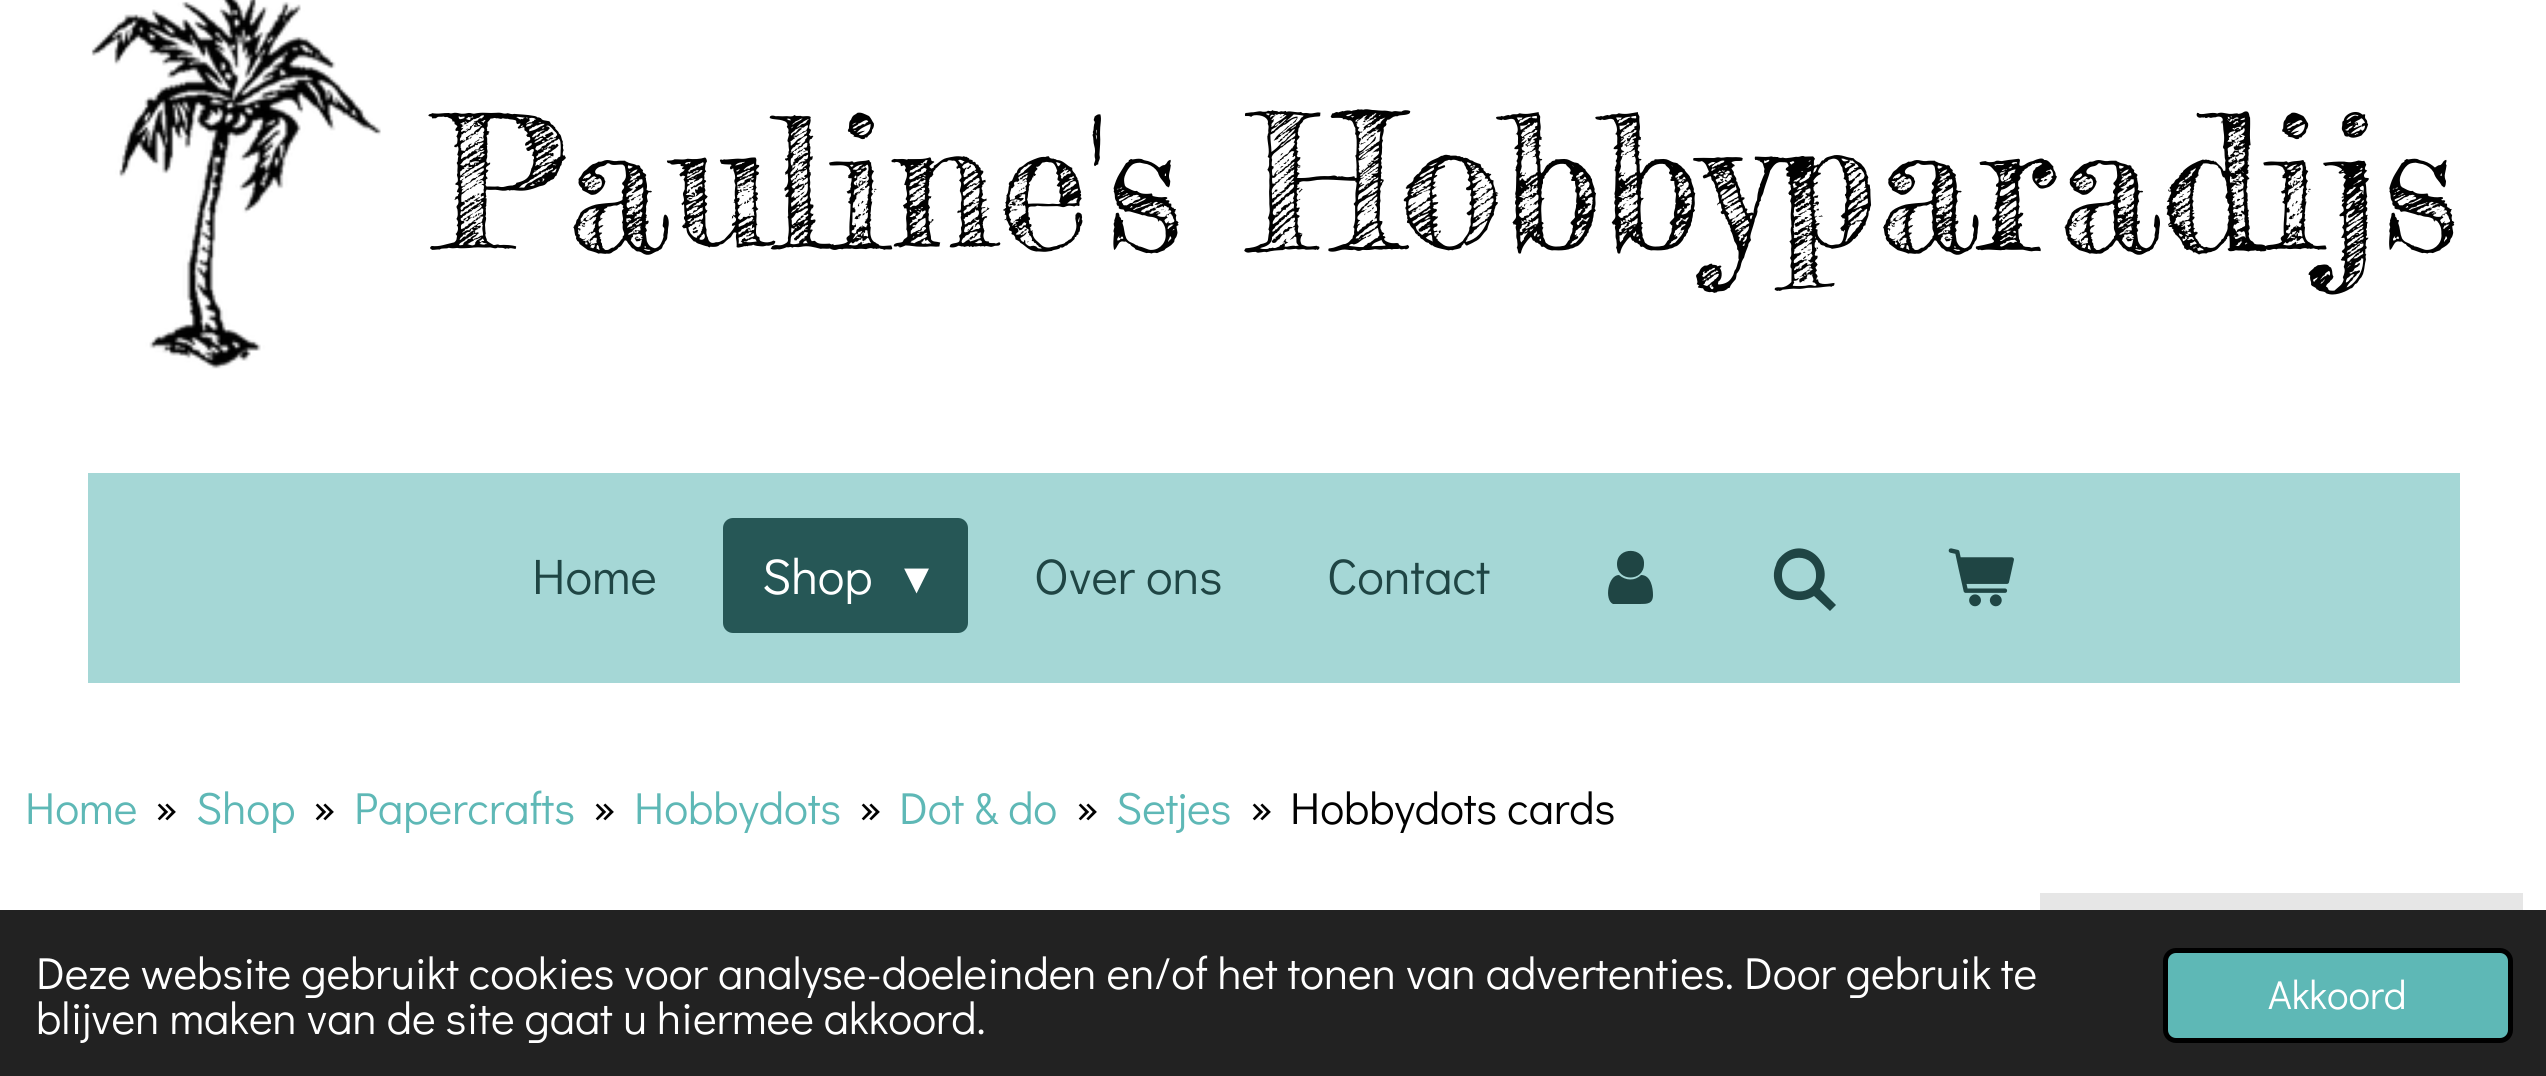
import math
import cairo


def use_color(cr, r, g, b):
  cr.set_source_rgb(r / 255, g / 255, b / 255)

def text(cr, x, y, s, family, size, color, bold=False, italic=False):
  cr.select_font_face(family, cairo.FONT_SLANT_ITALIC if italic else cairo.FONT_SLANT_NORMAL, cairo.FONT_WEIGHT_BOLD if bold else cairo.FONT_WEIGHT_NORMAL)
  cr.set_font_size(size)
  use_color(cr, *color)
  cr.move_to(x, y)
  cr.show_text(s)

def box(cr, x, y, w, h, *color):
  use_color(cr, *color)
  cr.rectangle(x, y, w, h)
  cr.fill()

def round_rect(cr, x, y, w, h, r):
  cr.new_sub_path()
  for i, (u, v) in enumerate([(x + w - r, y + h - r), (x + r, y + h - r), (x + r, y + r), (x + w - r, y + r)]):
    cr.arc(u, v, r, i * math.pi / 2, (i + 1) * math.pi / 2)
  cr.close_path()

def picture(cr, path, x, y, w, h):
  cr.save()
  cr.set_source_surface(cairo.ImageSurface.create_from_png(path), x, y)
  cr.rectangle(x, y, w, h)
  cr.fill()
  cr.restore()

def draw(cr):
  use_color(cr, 255, 255, 255)
  cr.paint()
  picture(cr, "img_01.png", 91, 0, 290, 369)
  box(cr, 88, 473, 2372, 210, 165, 215, 214)
  use_color(cr, 38, 87, 86)
  round_rect(cr, 723, 518, 245, 115, 10)
  cr.fill()
  use_color(cr, 31, 69, 68)
  cr.new_path()
  cr.move_to(1653, 595)
  cr.curve_to(1653, 604, 1647, 604, 1640, 604)
  cr.line_to(1613, 604)
  cr.curve_to(1604, 600, 1608, 575, 1619, 575)
  cr.curve_to(1626, 581, 1635, 581, 1641, 575)
  cr.curve_to(1651, 575, 1653, 588, 1653, 595)
  cr.close_path()
  cr.move_to(1644, 564)
  cr.curve_to(1644, 582, 1617, 582, 1617, 564)
  cr.curve_to(1617, 546, 1645, 547, 1644, 564)
  cr.close_path()
  cr.fill()
  cr.new_path()
  cr.move_to(1820, 589)
  cr.line_to(1836, 605)
  cr.line_to(1830, 611)
  cr.line_to(1814, 596)
  cr.curve_to(1801, 604, 1784, 600, 1777, 587)
  cr.curve_to(1773, 580, 1773, 572, 1776, 565)
  cr.curve_to(1777, 560, 1781, 556, 1785, 553)
  cr.curve_to(1808, 537, 1836, 566, 1820, 589)
  cr.close_path()
  cr.move_to(1816, 575)
  cr.curve_to(1816, 552, 1782, 552, 1782, 575)
  cr.curve_to(1782, 597, 1817, 597, 1816, 575)
  cr.close_path()
  cr.fill()
  picture(cr, "img_02.png", 1948, 548, 66, 59)
  box(cr, 2040, 893, 483, 17, 230, 230, 230)
  box(cr, 0, 910, 2546, 166, 34, 34, 34)
  use_color(cr, 94, 184, 182)
  round_rect(cr, 2165.5, 950.5, 345, 90, 10.5)
  cr.fill_preserve()
  use_color(cr, 0, 0, 0)
  cr.set_line_width(5)
  cr.stroke()
  text(cr, 433, 249, "Pauline's Hobbyparadijs", "Fredericka the Great", 183.75, (1, 1, 1))
  text(cr, 532, 594, "Home", "Didact Gothic", 50, (31, 69, 68))
  text(cr, 762, 594, "Shop", "Didact Gothic", 50, (255, 255, 255))
  text(cr, 904, 594, "▾", "DejaVu Sans", 50, (255, 255, 255))
  text(cr, 1034, 594, "Over ons", "Didact Gothic", 50, (31, 69, 68))
  text(cr, 1327, 594, "Contact", "Didact Gothic", 50, (31, 69, 68))
  text(cr, 25, 824, "Home", "Didact Gothic", 45, (94, 184, 182))
  text(cr, 155, 824, "»", "Didact Gothic", 45, (1, 1, 1))
  text(cr, 196, 824, "Shop", "Didact Gothic", 45, (94, 184, 182))
  text(cr, 313, 824, "»", "Didact Gothic", 45, (1, 1, 1))
  text(cr, 354, 824, "Papercrafts", "Didact Gothic", 45, (94, 184, 182))
  text(cr, 593, 824, "»", "Didact Gothic", 45, (1, 1, 1))
  text(cr, 634, 824, "Hobbydots", "Didact Gothic", 45, (94, 184, 182))
  text(cr, 859, 824, "»", "Didact Gothic", 45, (1, 1, 1))
  text(cr, 899, 824, "Dot & do", "Didact Gothic", 45, (94, 184, 182))
  text(cr, 1076, 824, "»", "Didact Gothic", 45, (1, 1, 1))
  text(cr, 1116, 824, "Setjes", "Didact Gothic", 45, (94, 184, 182))
  text(cr, 1250, 824, "»", "Didact Gothic", 45, (1, 1, 1))
  text(cr, 1290, 824, "Hobbydots cards", "Didact Gothic", 45, (1, 1, 1))
  text(cr, 36, 989, "Deze website gebruikt cookies voor analyse-doeleinden en/of het tonen van advertenties. Door gebruik te", "Didact Gothic", 45, (255, 255, 255))
  text(cr, 36, 1034, "blijven maken van de site gaat u hiermee akkoord.", "Didact Gothic", 45, (255, 255, 255))
  text(cr, 2268, 1009, "Akkoord", "Didact Gothic", 40.5, (255, 255, 255))


surface = cairo.ImageSurface(cairo.FORMAT_RGB24, 2546, 1076)
cr = cairo.Context(surface)
options = cairo.FontOptions()
options.set_hint_metrics(cairo.HINT_METRICS_OFF)
options.set_hint_style(cairo.HINT_STYLE_NONE)
cr.set_font_options(options)
cr.set_miter_limit(4)
draw(cr)
surface.write_to_png("out.png")
